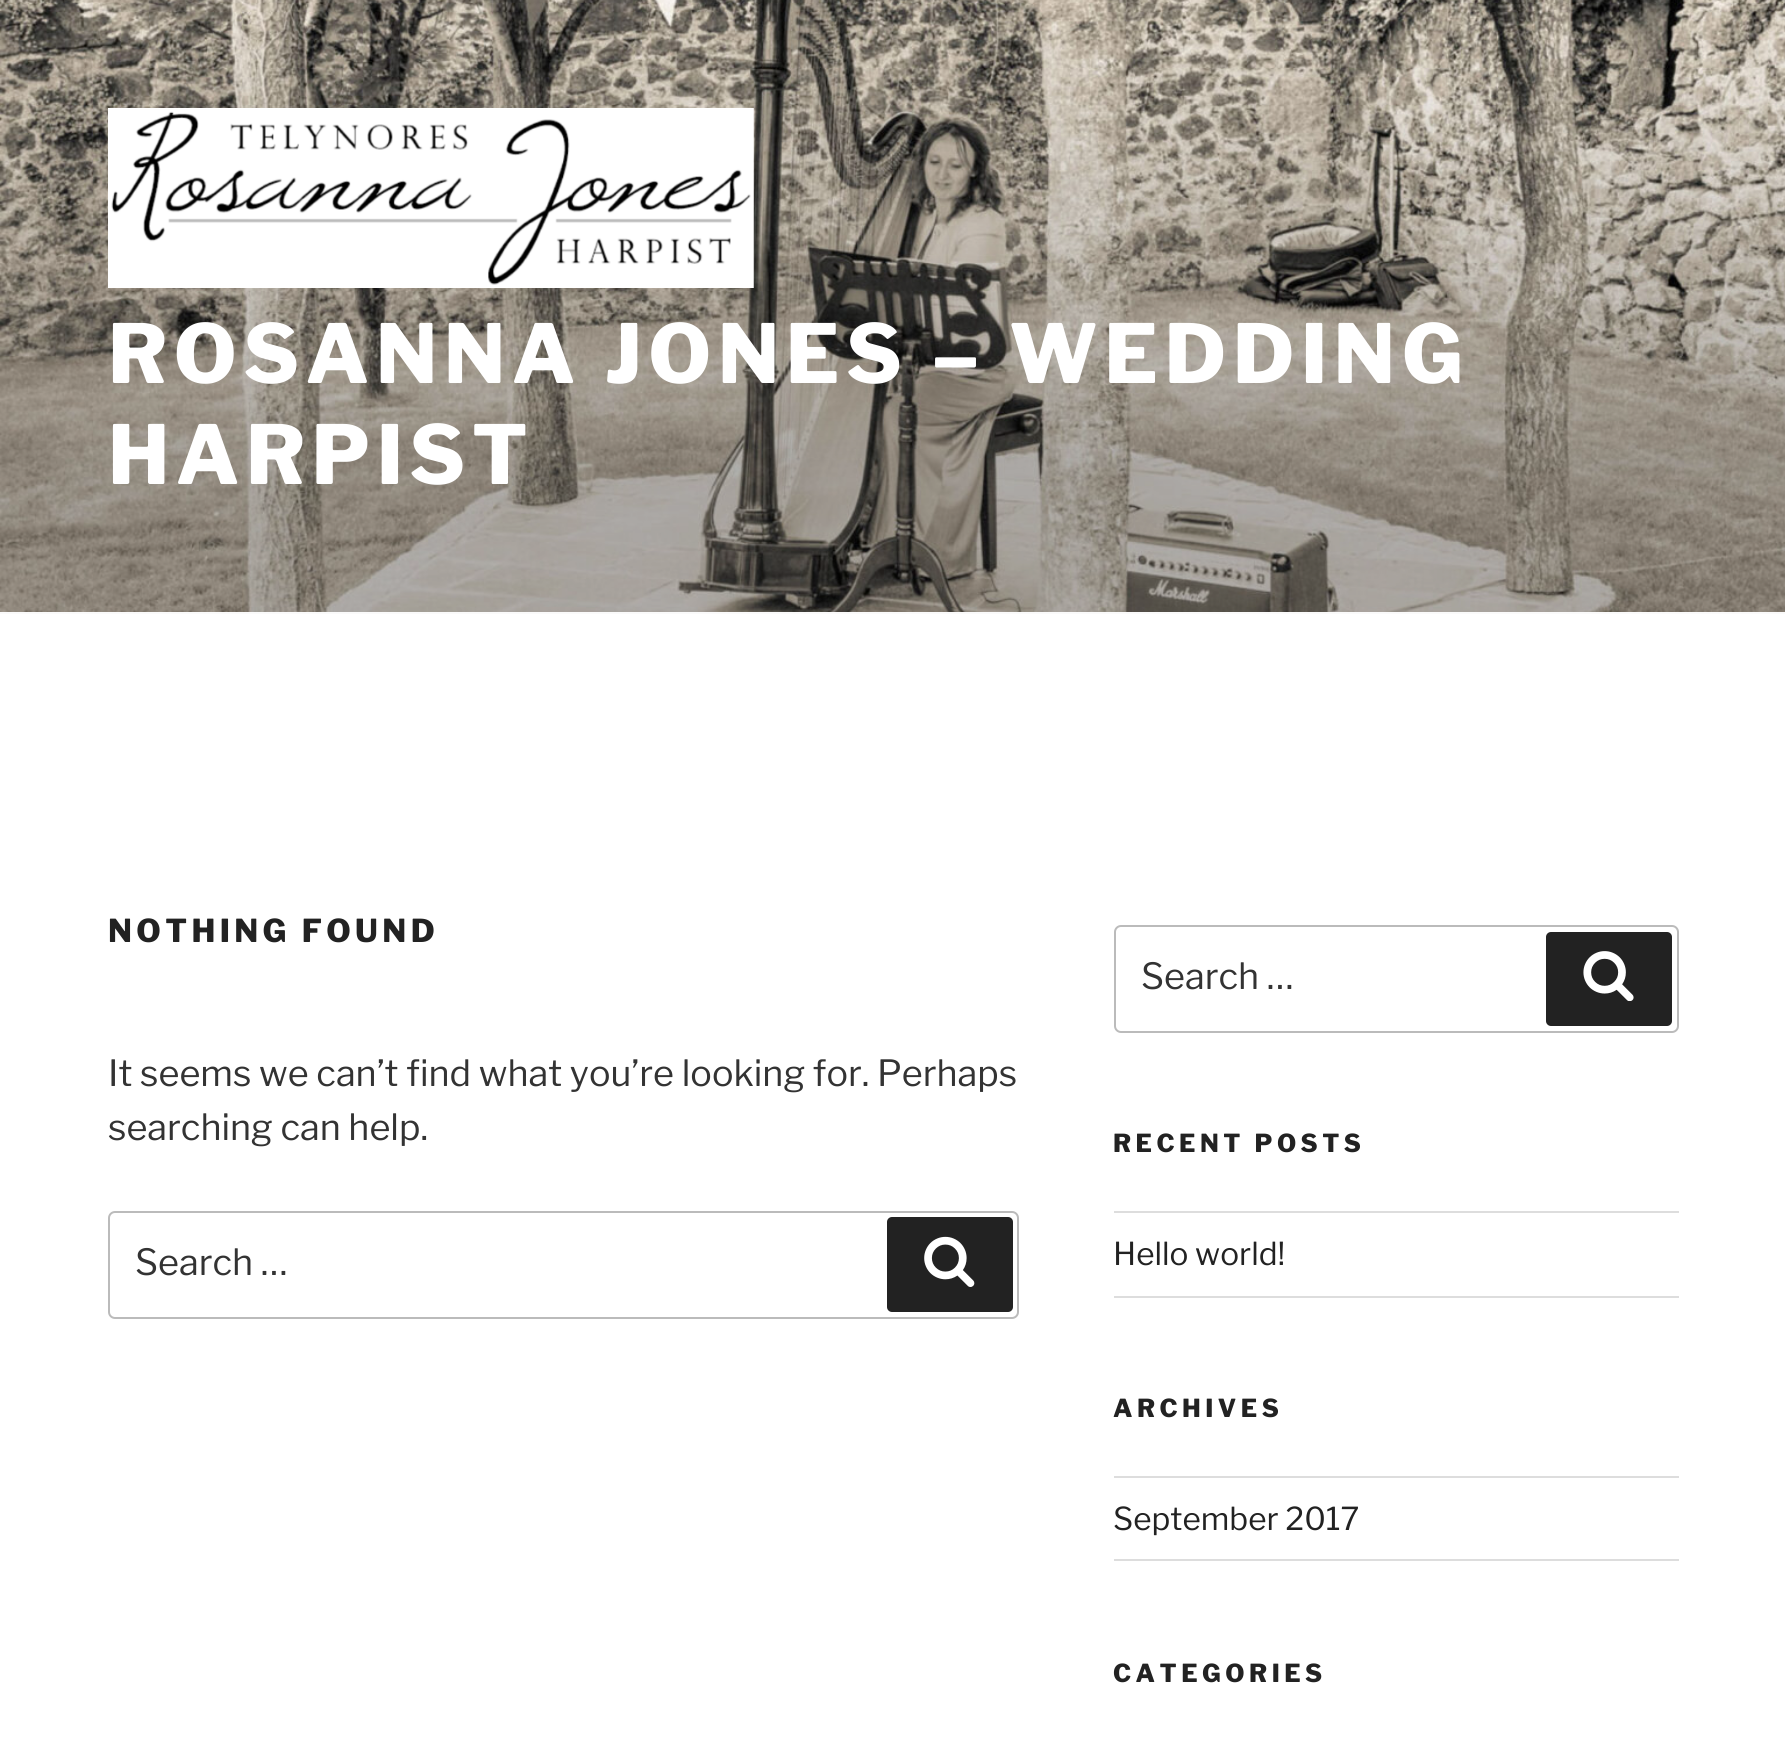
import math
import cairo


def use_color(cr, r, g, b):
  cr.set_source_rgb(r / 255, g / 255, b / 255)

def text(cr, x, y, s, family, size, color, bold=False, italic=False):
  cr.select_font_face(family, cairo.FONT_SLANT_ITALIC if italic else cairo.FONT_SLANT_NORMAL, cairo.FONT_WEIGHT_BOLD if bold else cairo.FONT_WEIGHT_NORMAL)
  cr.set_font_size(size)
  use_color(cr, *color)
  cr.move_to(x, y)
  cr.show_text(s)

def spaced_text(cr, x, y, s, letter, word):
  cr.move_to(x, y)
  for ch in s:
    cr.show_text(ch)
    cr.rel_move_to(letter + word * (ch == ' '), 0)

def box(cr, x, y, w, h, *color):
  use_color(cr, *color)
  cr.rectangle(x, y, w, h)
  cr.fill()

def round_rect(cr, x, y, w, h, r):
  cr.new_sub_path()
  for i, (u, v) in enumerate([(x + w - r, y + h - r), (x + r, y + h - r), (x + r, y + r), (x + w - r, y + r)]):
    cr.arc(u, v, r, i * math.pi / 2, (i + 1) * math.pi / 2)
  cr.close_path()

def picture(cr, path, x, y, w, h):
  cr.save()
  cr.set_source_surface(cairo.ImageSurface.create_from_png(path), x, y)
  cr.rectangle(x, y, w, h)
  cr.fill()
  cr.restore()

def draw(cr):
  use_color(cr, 255, 255, 255)
  cr.paint()
  box(cr, 0, 612, 1785, 2, 250, 250, 250)
  picture(cr, "img_01.png", 0, 0, 1785, 612)
  picture(cr, "img_02.png", 108, 108, 646, 180)
  round_rect(cr, 109, 1212, 909, 106, 6)
  use_color(cr, 187, 187, 187)
  cr.stroke()
  use_color(cr, 34, 34, 34)
  round_rect(cr, 887, 1217, 126, 95, 5)
  cr.fill()
  picture(cr, "img_03.png", 924, 1236, 51, 51)
  round_rect(cr, 1115, 926, 563, 106, 6)
  use_color(cr, 187, 187, 187)
  cr.stroke()
  use_color(cr, 34, 34, 34)
  round_rect(cr, 1546, 932, 126, 94, 5)
  cr.fill()
  picture(cr, "img_04.png", 1583, 951, 51, 50)
  box(cr, 1114, 1211, 565, 2, 221, 221, 221)
  box(cr, 1114, 1296, 565, 2, 221, 221, 221)
  box(cr, 1114, 1476, 565, 2, 221, 221, 221)
  box(cr, 1114, 1559, 565, 2, 221, 221, 221)
  cr.select_font_face("Libre Franklin ExtraBold")
  cr.set_font_size(81)
  use_color(cr, 255, 255, 255)
  spaced_text(cr, 108, 383, "ROSANNA JONES – WEDDING", 6.5, 0)
  spaced_text(cr, 108, 484, "HARPIST", 6.5, 0)
  cr.set_font_size(31.5)
  use_color(cr, 34, 34, 34)
  spaced_text(cr, 108, 942, "NOTHING FOUND", 4.4, 0)
  text(cr, 108, 1086, "It seems we can’t find what you’re looking for. Perhaps", "Libre Franklin", 36, (51, 51, 51))
  text(cr, 108, 1140, "searching can help.", "Libre Franklin", 36, (51, 51, 51))
  text(cr, 135, 1275, "Search …", "Libre Franklin", 36, (51, 51, 51))
  text(cr, 1141, 989, "Search …", "Libre Franklin", 36, (51, 51, 51))
  cr.select_font_face("Libre Franklin ExtraBold")
  cr.set_font_size(24.75)
  use_color(cr, 34, 34, 34)
  spaced_text(cr, 1113, 1152, "RECENT POSTS", 4.5, 0)
  text(cr, 1113, 1265, "Hello world!", "Libre Franklin", 31.5, (34, 34, 34))
  cr.select_font_face("Libre Franklin ExtraBold")
  cr.set_font_size(24.75)
  spaced_text(cr, 1113, 1417, "ARCHIVES", 4.5, 0)
  text(cr, 1113, 1530, "September 2017", "Libre Franklin", 31.5, (34, 34, 34))
  cr.select_font_face("Libre Franklin ExtraBold")
  cr.set_font_size(24.75)
  spaced_text(cr, 1113, 1682, "CATEGORIES", 4.5, 0)


surface = cairo.ImageSurface(cairo.FORMAT_RGB24, 1785, 1742)
cr = cairo.Context(surface)
options = cairo.FontOptions()
options.set_hint_metrics(cairo.HINT_METRICS_OFF)
options.set_hint_style(cairo.HINT_STYLE_NONE)
cr.set_font_options(options)
cr.set_miter_limit(4)
draw(cr)
surface.write_to_png("out.png")
